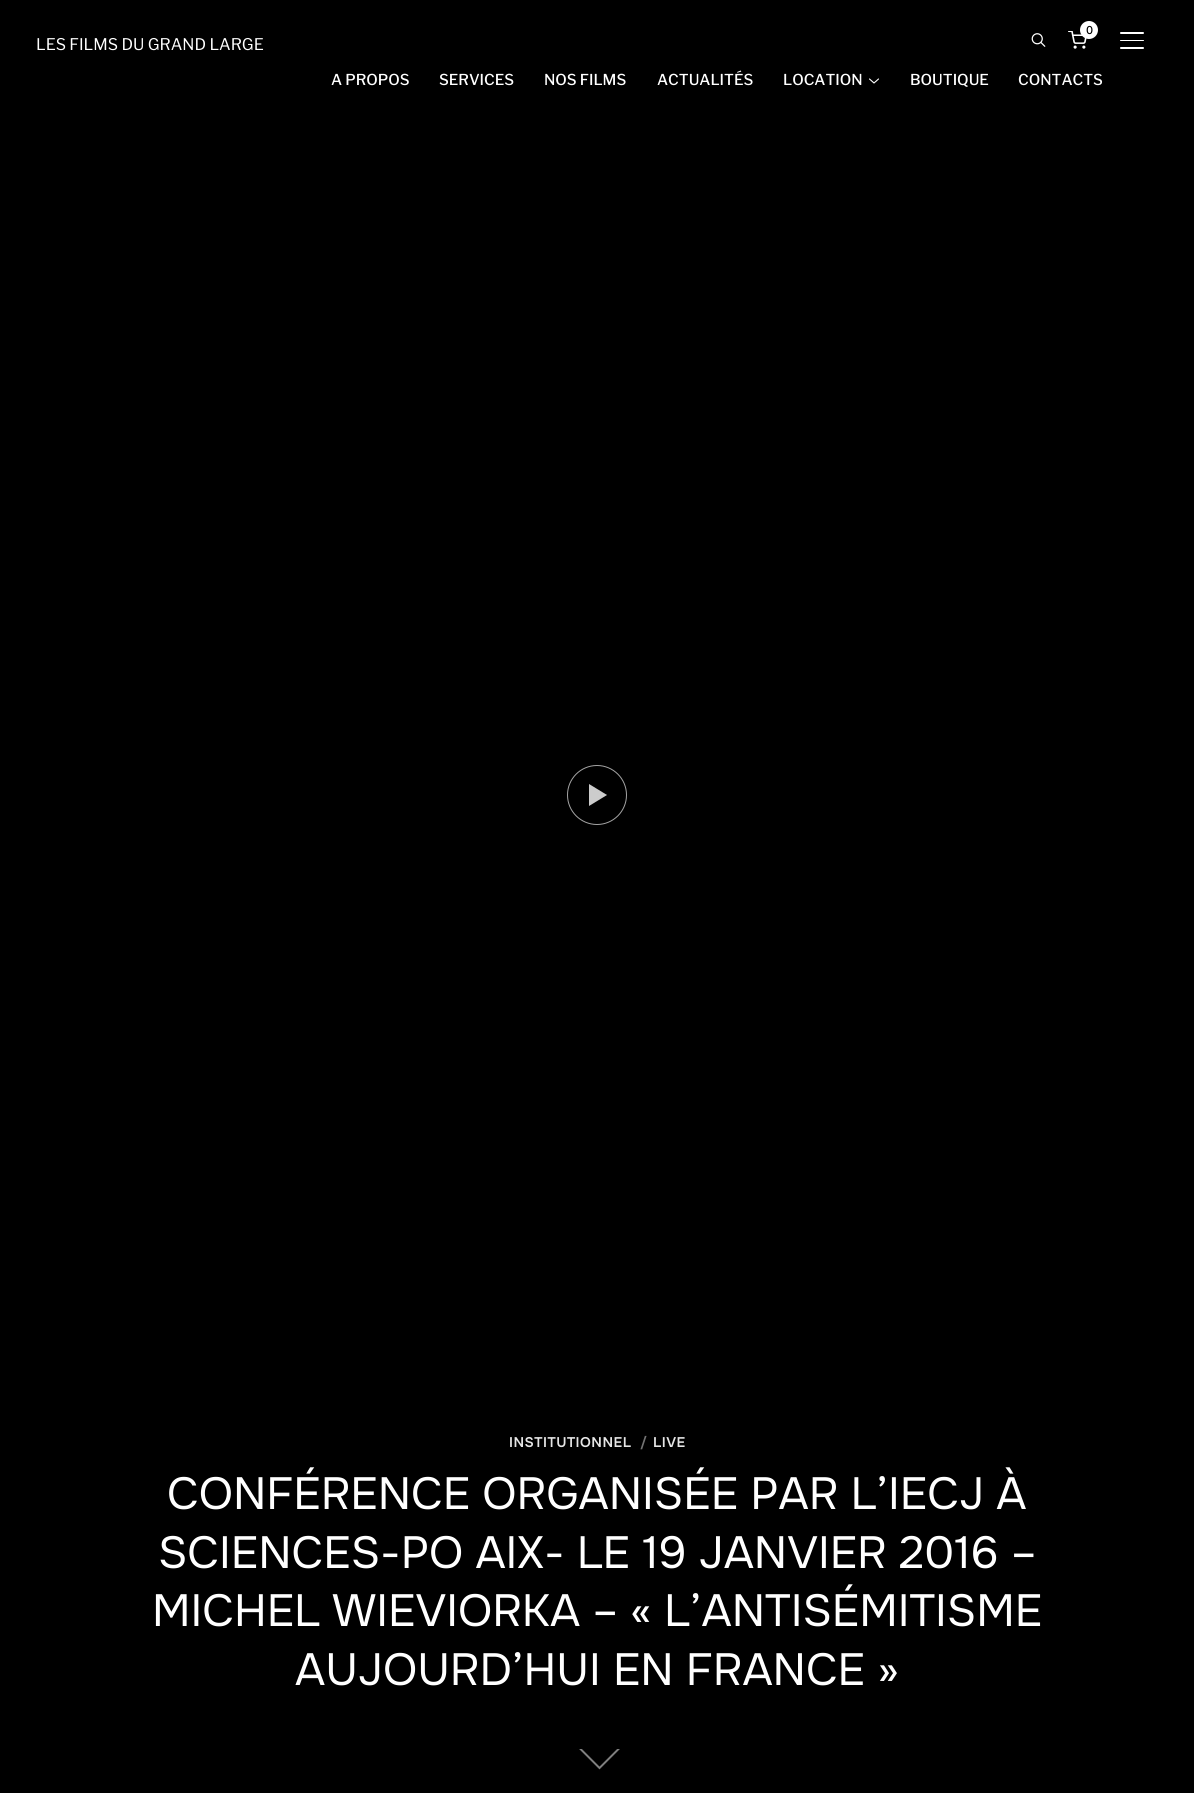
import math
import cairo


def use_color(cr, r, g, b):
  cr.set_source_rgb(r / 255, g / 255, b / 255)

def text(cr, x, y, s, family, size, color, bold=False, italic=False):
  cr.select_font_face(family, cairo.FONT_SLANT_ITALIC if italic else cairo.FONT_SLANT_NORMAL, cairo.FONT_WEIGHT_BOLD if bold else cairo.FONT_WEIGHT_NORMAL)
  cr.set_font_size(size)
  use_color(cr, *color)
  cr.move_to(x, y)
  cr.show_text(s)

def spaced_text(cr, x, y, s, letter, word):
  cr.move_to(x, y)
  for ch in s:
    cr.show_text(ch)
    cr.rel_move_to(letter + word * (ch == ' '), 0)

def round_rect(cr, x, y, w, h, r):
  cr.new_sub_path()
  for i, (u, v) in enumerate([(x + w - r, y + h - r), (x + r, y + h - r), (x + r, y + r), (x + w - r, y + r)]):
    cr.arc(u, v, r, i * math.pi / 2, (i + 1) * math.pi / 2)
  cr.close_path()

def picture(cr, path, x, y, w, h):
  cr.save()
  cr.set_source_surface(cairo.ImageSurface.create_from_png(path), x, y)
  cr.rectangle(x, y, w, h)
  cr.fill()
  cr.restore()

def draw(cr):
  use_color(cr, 0, 0, 0)
  cr.paint()
  picture(cr, "img_01.png", 1068, 31, 19, 18)
  use_color(cr, 255, 255, 255)
  cr.arc(1089, 30, 9, 0, 2 * math.pi)
  cr.fill()
  picture(cr, "img_02.png", 1031, 33, 15, 14)
  round_rect(cr, 1120, 32, 24, 2, 1)
  cr.fill()
  round_rect(cr, 1120, 40, 24, 1, 0.5)
  cr.fill()
  round_rect(cr, 1120, 47, 24, 2, 1)
  cr.fill()
  cr.new_path()
  cr.move_to(869.5, 79)
  cr.line_to(874, 83)
  cr.line_to(878.5, 79)
  cr.set_line_width(1.1)
  cr.set_line_cap(cairo.LINE_CAP_ROUND)
  cr.set_line_join(cairo.LINE_JOIN_ROUND)
  cr.stroke()
  use_color(cr, 204, 204, 204)
  cr.new_path()
  cr.move_to(589, 784)
  cr.line_to(607, 795)
  cr.line_to(589, 806)
  cr.close_path()
  cr.fill()
  cr.arc(597, 795, 29.5, 0, 2 * math.pi)
  use_color(cr, 163, 163, 163)
  cr.set_line_width(1)
  cr.set_line_cap(cairo.LINE_CAP_BUTT)
  cr.set_line_join(cairo.LINE_JOIN_MITER)
  cr.stroke()
  cr.save()
  cr.rectangle(570, 1749, 69, 24)
  cr.clip()
  cr.new_path()
  cr.move_to(599.5, 1728)
  cr.line_to(619.5, 1748)
  cr.line_to(599.5, 1768)
  cr.line_to(579.5, 1748)
  cr.close_path()
  use_color(cr, 128, 128, 128)
  cr.set_line_width(2)
  cr.stroke()
  cr.restore()
  text(cr, 1086, 34, "0", "Inter Medium", 11, (0, 0, 0))
  text(cr, 36, 50, "LES FILMS DU GRAND LARGE", "Libre Franklin", 16, (255, 255, 255))
  text(cr, 331, 85, "A PROPOS", "Libre Franklin Medium", 15, (255, 255, 255))
  text(cr, 439, 85, "SERVICES", "Libre Franklin Medium", 15, (255, 255, 255))
  text(cr, 544, 85, "NOS FILMS", "Libre Franklin Medium", 15, (255, 255, 255))
  text(cr, 657, 85, "ACTUALITÉS", "Libre Franklin Medium", 15, (255, 255, 255))
  text(cr, 783, 85, "LOCATION", "Libre Franklin Medium", 15, (255, 255, 255))
  text(cr, 910, 85, "BOUTIQUE", "Libre Franklin Medium", 15, (255, 255, 255))
  text(cr, 1018, 85, "CONTACTS", "Libre Franklin Medium", 15, (255, 255, 255))
  cr.select_font_face("Onest SemiBold")
  cr.set_font_size(14)
  use_color(cr, 230, 230, 230)
  spaced_text(cr, 509, 1447, "INSTITUTIONNEL", 0.5, 0)
  use_color(cr, 115, 115, 115)
  spaced_text(cr, 640, 1447, "/", 0.5, 0)
  use_color(cr, 230, 230, 230)
  spaced_text(cr, 653, 1447, "LIVE", 0.5, 0)
  text(cr, 167, 1509, "CONFÉRENCE ORGANISÉE PAR L’IECJ À", "Onest", 45, (255, 255, 255))
  text(cr, 158, 1568, "SCIENCES-PO AIX- LE 19 JANVIER 2016 –", "Onest", 45, (255, 255, 255))
  text(cr, 152, 1626, "MICHEL WIEVIORKA – « L’ANTISÉMITISME", "Onest", 45, (255, 255, 255))
  text(cr, 295, 1685, "AUJOURD’HUI EN FRANCE »", "Onest", 45, (255, 255, 255))


surface = cairo.ImageSurface(cairo.FORMAT_RGB24, 1194, 1793)
cr = cairo.Context(surface)
options = cairo.FontOptions()
options.set_hint_metrics(cairo.HINT_METRICS_OFF)
options.set_hint_style(cairo.HINT_STYLE_NONE)
cr.set_font_options(options)
cr.set_miter_limit(4)
draw(cr)
surface.write_to_png("out.png")
